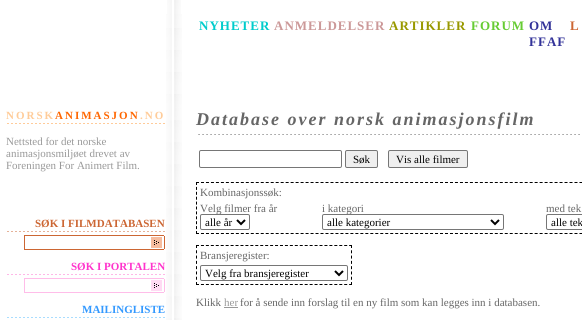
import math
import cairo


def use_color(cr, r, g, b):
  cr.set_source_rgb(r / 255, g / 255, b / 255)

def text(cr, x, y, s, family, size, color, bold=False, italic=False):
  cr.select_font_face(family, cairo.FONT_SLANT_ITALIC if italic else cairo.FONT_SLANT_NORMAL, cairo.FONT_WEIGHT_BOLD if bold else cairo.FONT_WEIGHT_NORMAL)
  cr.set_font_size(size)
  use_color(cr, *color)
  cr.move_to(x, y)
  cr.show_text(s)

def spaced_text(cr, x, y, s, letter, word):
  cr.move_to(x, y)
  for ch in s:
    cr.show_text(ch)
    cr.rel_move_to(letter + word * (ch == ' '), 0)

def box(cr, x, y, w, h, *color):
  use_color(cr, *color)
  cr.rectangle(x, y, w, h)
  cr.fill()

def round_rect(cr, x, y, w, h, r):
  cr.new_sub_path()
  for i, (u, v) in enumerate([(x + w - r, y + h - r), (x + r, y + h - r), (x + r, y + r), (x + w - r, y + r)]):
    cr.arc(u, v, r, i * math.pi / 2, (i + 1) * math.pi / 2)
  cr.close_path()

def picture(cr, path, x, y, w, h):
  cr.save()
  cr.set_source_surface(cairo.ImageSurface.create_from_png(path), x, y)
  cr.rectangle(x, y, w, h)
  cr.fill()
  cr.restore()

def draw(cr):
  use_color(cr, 255, 255, 255)
  cr.paint()
  picture(cr, "img_01.png", 167, 0, 14, 14)
  picture(cr, "img_02.png", 166, 14, 16, 94)
  picture(cr, "img_03.png", 166, 108, 16, 212)
  picture(cr, "img_04.png", 7, 123, 158, 1)
  picture(cr, "img_05.png", 7, 231, 158, 1)
  box(cr, 24, 235, 127, 1, 204, 102, 51)
  box(cr, 24, 249, 127, 1, 204, 102, 51)
  box(cr, 24, 235, 1, 15, 204, 102, 51)
  picture(cr, "img_06.png", 151, 235, 14, 15)
  picture(cr, "img_07.png", 7, 274, 158, 1)
  box(cr, 24, 278, 127, 1, 255, 189, 233)
  box(cr, 24, 292, 127, 1, 255, 189, 233)
  box(cr, 24, 278, 1, 15, 255, 189, 233)
  picture(cr, "img_08.png", 151, 278, 14, 15)
  picture(cr, "img_09.png", 7, 317, 158, 1)
  picture(cr, "img_10.png", 198, 134, 382, 1)
  round_rect(cr, 199.5, 150.5, 142, 17, 1.5)
  use_color(cr, 118, 118, 118)
  cr.set_line_width(1)
  cr.stroke()
  use_color(cr, 239, 239, 239)
  round_rect(cr, 345.5, 150.5, 32, 17, 1.5)
  cr.fill_preserve()
  use_color(cr, 118, 118, 118)
  cr.stroke()
  use_color(cr, 239, 239, 239)
  round_rect(cr, 388.5, 150.5, 79, 17, 1.5)
  cr.fill_preserve()
  use_color(cr, 118, 118, 118)
  cr.stroke()
  cr.new_path()
  cr.move_to(196, 182.5)
  cr.line_to(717, 182.5)
  use_color(cr, 0, 0, 0)
  cr.set_dash([3, 1.98])
  cr.stroke()
  cr.new_path()
  cr.move_to(196, 233.5)
  cr.line_to(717, 233.5)
  cr.stroke()
  cr.new_path()
  cr.move_to(196.5, 182)
  cr.line_to(196.5, 234)
  cr.set_dash([3, 1.9])
  cr.stroke()
  round_rect(cr, 546.5, 214.5, 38, 15, 1.5)
  use_color(cr, 118, 118, 118)
  cr.set_dash([])
  cr.stroke()
  cr.new_path()
  cr.move_to(196, 245.5)
  cr.line_to(352, 245.5)
  use_color(cr, 0, 0, 0)
  cr.set_dash([3, 1.94])
  cr.stroke()
  cr.new_path()
  cr.move_to(351.5, 245)
  cr.line_to(351.5, 285)
  cr.set_dash([3, 2.29])
  cr.stroke()
  cr.new_path()
  cr.move_to(196, 284.5)
  cr.line_to(352, 284.5)
  cr.set_dash([3, 1.94])
  cr.stroke()
  cr.new_path()
  cr.move_to(196.5, 245)
  cr.line_to(196.5, 285)
  cr.set_dash([3, 2.29])
  cr.stroke()
  round_rect(cr, 200.5, 265.5, 147, 15, 1.5)
  use_color(cr, 118, 118, 118)
  cr.set_dash([])
  cr.stroke()
  cr.new_path()
  cr.move_to(335, 271)
  cr.line_to(339, 275)
  cr.line_to(343, 271)
  use_color(cr, 0, 0, 0)
  cr.set_line_width(2)
  cr.stroke()
  box(cr, 224, 307, 14, 1, 153, 153, 153)
  cr.select_font_face("Liberation Serif", cairo.FONT_SLANT_NORMAL, cairo.FONT_WEIGHT_BOLD)
  cr.set_font_size(13)
  use_color(cr, 0, 204, 204)
  spaced_text(cr, 199, 30, "NYHETER", 1, 0)
  use_color(cr, 204, 153, 153)
  spaced_text(cr, 274, 30, "ANMELDELSER", 1, 0)
  use_color(cr, 153, 153, 0)
  spaced_text(cr, 389, 30, "ARTIKLER", 1, 0)
  use_color(cr, 102, 204, 51)
  spaced_text(cr, 471, 30, "FORUM", 1, 0)
  use_color(cr, 51, 51, 153)
  spaced_text(cr, 529, 30, "OM", 1, 0)
  spaced_text(cr, 529, 46, "FFAF", 1, 0)
  use_color(cr, 204, 102, 51)
  spaced_text(cr, 570, 30, "L", 1, 0)
  cr.set_font_size(11)
  use_color(cr, 255, 204, 153)
  spaced_text(cr, 6, 119, "NORSK", 2, 0)
  use_color(cr, 255, 102, 0)
  spaced_text(cr, 55, 119, "ANIMASJON", 2, 0)
  use_color(cr, 255, 204, 153)
  spaced_text(cr, 140, 119, ".NO", 2, 0)
  text(cr, 6, 145, "Nettsted for det norske", "Liberation Serif", 11, (153, 153, 153))
  text(cr, 6, 157, "animasjonsmiljøet drevet av", "Liberation Serif", 11, (153, 153, 153))
  text(cr, 6, 169, "Foreningen For Animert Film.", "Liberation Serif", 11, (153, 153, 153))
  text(cr, 35, 227, "SØK I FILMDATABASEN", "Liberation Serif", 11, (204, 102, 51), bold=True)
  text(cr, 71, 270, "SØK I PORTALEN", "Liberation Serif", 11, (255, 51, 204), bold=True)
  text(cr, 82, 313, "MAILINGLISTE", "Liberation Serif", 11, (51, 153, 255), bold=True)
  cr.select_font_face("Liberation Serif", cairo.FONT_SLANT_ITALIC, cairo.FONT_WEIGHT_BOLD)
  cr.set_font_size(18)
  use_color(cr, 102, 102, 102)
  spaced_text(cr, 196, 125, "Database over norsk animasjonsfilm", 2, 0)
  text(cr, 353, 163, "Søk", "Liberation Serif", 11, (0, 0, 0))
  text(cr, 396, 163, "Vis alle filmer", "Liberation Serif", 11, (0, 0, 0))
  text(cr, 200, 196, "Kombinasjonssøk:", "Liberation Serif", 11, (102, 102, 102))
  text(cr, 200, 212, "Velg filmer fra år", "Liberation Serif", 11, (102, 102, 102))
  use_color(cr, 255, 255, 255)
  round_rect(cr, 200.5, 214.5, 49, 15, 1.5)
  cr.fill_preserve()
  use_color(cr, 118, 118, 118)
  cr.set_line_width(1)
  cr.stroke()
  cr.new_path()
  cr.move_to(237, 220)
  cr.line_to(241, 224)
  cr.line_to(245, 220)
  use_color(cr, 0, 0, 0)
  cr.set_line_width(2)
  cr.stroke()
  text(cr, 205, 226, "alle år", "Liberation Serif", 11, (0, 0, 0))
  text(cr, 322, 212, "i kategori", "Liberation Serif", 11, (102, 102, 102))
  use_color(cr, 255, 255, 255)
  round_rect(cr, 322.5, 214.5, 181, 15, 1.5)
  cr.fill_preserve()
  use_color(cr, 118, 118, 118)
  cr.set_line_width(1)
  cr.stroke()
  cr.new_path()
  cr.move_to(491, 220)
  cr.line_to(495, 224)
  cr.line_to(499, 220)
  use_color(cr, 0, 0, 0)
  cr.set_line_width(2)
  cr.stroke()
  text(cr, 327, 226, "alle kategorier", "Liberation Serif", 11, (0, 0, 0))
  text(cr, 546, 212, "med tek", "Liberation Serif", 11, (102, 102, 102))
  text(cr, 551, 226, "alle tek", "Liberation Serif", 11, (0, 0, 0))
  text(cr, 200, 259, "Bransjeregister:", "Liberation Serif", 11, (102, 102, 102))
  text(cr, 205, 277, "Velg fra bransjeregister", "Liberation Serif", 11, (0, 0, 0))
  text(cr, 196, 306, "Klikk", "Liberation Serif", 11, (102, 102, 102))
  text(cr, 224, 306, "her", "Liberation Serif", 11, (153, 153, 153))
  text(cr, 240, 306, "for å sende inn forslag til en ny film som kan legges inn i databasen.", "Liberation Serif", 11, (102, 102, 102))


surface = cairo.ImageSurface(cairo.FORMAT_RGB24, 582, 320)
cr = cairo.Context(surface)
options = cairo.FontOptions()
options.set_hint_metrics(cairo.HINT_METRICS_OFF)
options.set_hint_style(cairo.HINT_STYLE_NONE)
cr.set_font_options(options)
cr.set_miter_limit(4)
draw(cr)
surface.write_to_png("out.png")
